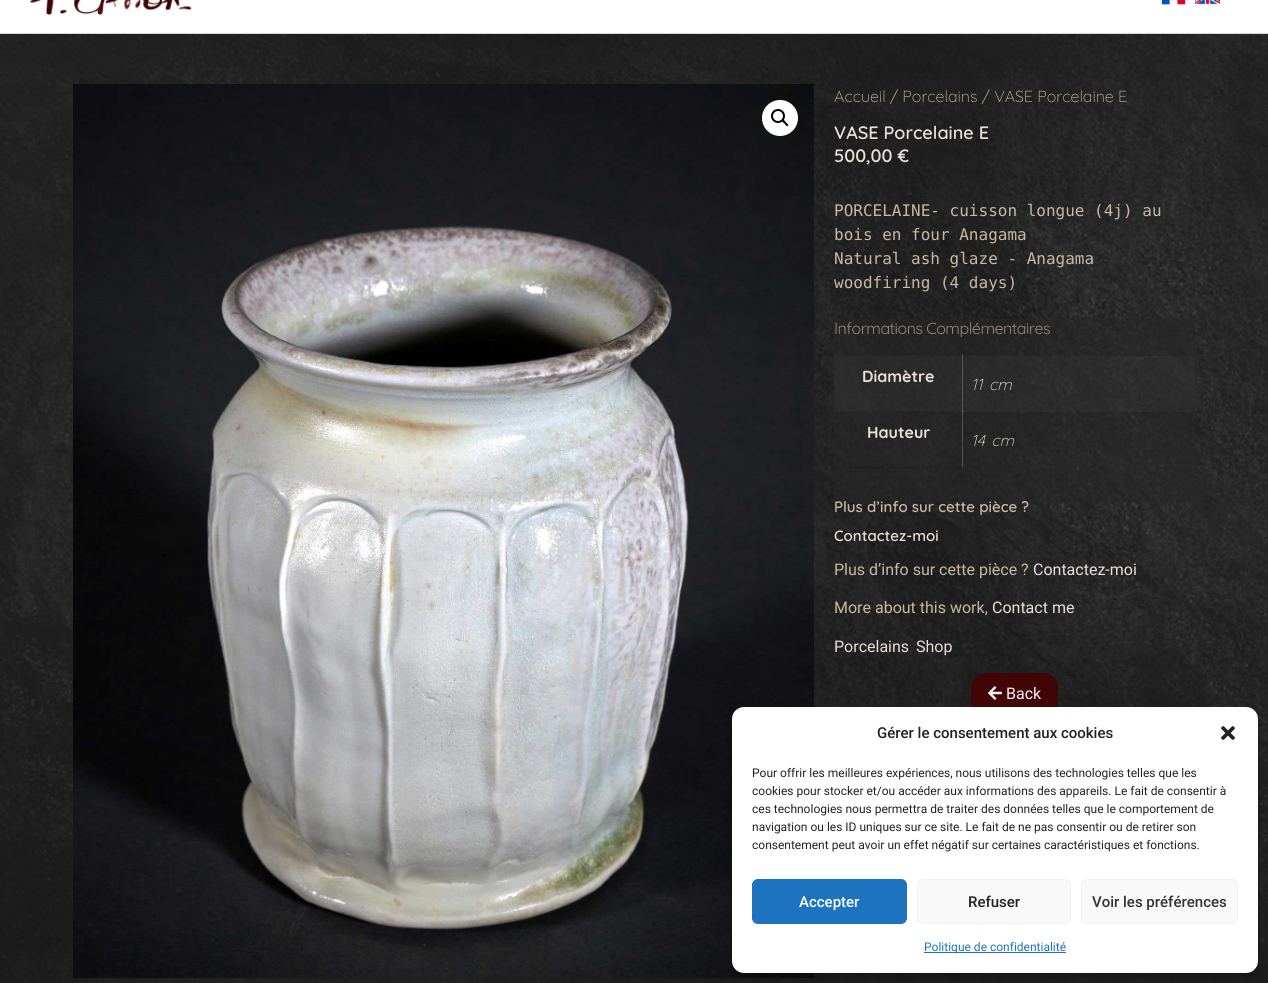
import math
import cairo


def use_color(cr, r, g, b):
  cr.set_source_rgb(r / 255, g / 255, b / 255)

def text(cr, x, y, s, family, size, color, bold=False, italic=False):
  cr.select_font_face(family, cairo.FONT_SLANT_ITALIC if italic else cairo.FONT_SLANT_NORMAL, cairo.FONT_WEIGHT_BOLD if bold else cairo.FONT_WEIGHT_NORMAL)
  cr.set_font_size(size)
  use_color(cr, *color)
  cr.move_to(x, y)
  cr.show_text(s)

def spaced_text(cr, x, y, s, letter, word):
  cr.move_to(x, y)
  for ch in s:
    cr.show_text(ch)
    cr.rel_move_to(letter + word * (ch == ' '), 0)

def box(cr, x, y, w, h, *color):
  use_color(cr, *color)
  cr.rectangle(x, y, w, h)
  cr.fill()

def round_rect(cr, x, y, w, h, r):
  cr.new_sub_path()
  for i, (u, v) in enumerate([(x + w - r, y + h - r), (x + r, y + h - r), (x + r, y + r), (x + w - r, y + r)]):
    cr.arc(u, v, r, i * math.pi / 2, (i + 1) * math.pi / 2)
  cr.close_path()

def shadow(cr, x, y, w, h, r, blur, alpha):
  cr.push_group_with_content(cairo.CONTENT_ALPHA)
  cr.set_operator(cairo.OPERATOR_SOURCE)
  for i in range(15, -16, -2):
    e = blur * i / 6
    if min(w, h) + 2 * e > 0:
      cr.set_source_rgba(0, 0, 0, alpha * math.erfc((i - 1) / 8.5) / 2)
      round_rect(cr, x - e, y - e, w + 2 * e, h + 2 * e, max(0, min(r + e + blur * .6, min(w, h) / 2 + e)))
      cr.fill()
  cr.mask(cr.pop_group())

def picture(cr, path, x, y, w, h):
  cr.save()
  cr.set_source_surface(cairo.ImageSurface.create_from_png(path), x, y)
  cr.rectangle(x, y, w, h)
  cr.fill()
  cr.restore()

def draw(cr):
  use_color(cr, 255, 255, 255)
  cr.paint()
  picture(cr, "img_01.png", 0, 34, 1268, 949)
  box(cr, 0, 33, 1268, 1, 214, 214, 214)
  picture(cr, "img_02.png", 30, 0, 162, 15)
  picture(cr, "img_03.png", 1161, 0, 25, 5)
  picture(cr, "img_04.png", 1195, 0, 25, 5)
  picture(cr, "img_05.png", 73, 84, 741, 894)
  use_color(cr, 255, 255, 255)
  cr.arc(780, 118, 18, 0, 2 * math.pi)
  cr.fill()
  cr.arc(778, 116, 6, 0, 2 * math.pi)
  use_color(cr, 0, 0, 0)
  cr.stroke()
  cr.new_path()
  cr.move_to(782.5, 120)
  cr.curve_to(783.5, 119, 785.5, 121.5, 786, 122.5)
  cr.curve_to(786.5, 123, 789, 124.5, 788, 126)
  cr.curve_to(787, 127, 785, 124.5, 784.5, 123.5)
  cr.curve_to(784, 123, 781, 121.5, 782.5, 120)
  cr.close_path()
  cr.fill()
  cr.set_source_rgba(0.157, 0.157, 0.157, 0.52)
  cr.rectangle(834, 319, 361, 183)
  cr.fill()
  cr.set_source_rgba(0.502, 0.502, 0.502, 0.07)
  cr.rectangle(834, 355, 129, 57)
  cr.fill()
  cr.rectangle(963, 355, 232, 57)
  cr.fill()
  cr.set_source_rgba(0, 0, 0, 0.1)
  cr.rectangle(834, 355, 361, 1)
  cr.fill()
  cr.set_source_rgba(0.502, 0.502, 0.502, 0.5)
  cr.rectangle(962, 411, 1, 57)
  cr.fill()
  cr.rectangle(962, 355, 1, 57)
  cr.fill()
  cr.set_source_rgba(0, 0, 0, 0.1)
  cr.rectangle(834, 411, 129, 1)
  cr.fill()
  cr.rectangle(834, 467, 129, 1)
  cr.fill()
  use_color(cr, 65, 4, 7)
  round_rect(cr, 971.5, 673.5, 86, 41, 14.5)
  cr.fill_preserve()
  cr.set_line_width(1)
  cr.stroke()
  picture(cr, "img_06.png", 988, 686, 14, 14)
  use_color(cr, 0, 0, 0)
  shadow(cr, 732, 713, 526, 266, 12, 3, 0.23)
  use_color(cr, 255, 255, 255)
  round_rect(cr, 732, 707, 526, 266, 12)
  cr.fill()
  picture(cr, "img_07.png", 1221, 726, 14, 14)
  use_color(cr, 30, 115, 190)
  round_rect(cr, 752.5, 879.5, 154, 44, 5.5)
  cr.fill_preserve()
  cr.stroke()
  use_color(cr, 249, 249, 249)
  round_rect(cr, 917.5, 879.5, 153, 44, 5.5)
  cr.fill_preserve()
  use_color(cr, 242, 242, 242)
  cr.stroke()
  use_color(cr, 249, 249, 249)
  round_rect(cr, 1081.5, 879.5, 156, 44, 5.5)
  cr.fill_preserve()
  use_color(cr, 242, 242, 242)
  cr.stroke()
  box(cr, 924, 952, 142, 1, 30, 115, 190)
  text(cr, 834, 102, "Accueil / Porcelains / VASE Porcelaine E", "Quicksand Light", 16, (202, 184, 162))
  text(cr, 834, 139, "VASE Porcelaine E", "Quicksand SemiBold", 18, (232, 225, 216))
  text(cr, 834, 162, "500,00 €", "Quicksand SemiBold", 18, (232, 225, 216))
  text(cr, 834, 216, "PORCELAINE- cuisson longue (4j) au", "DejaVu Sans Mono", 16, (202, 184, 162))
  text(cr, 834, 240, "bois en four Anagama", "DejaVu Sans Mono", 16, (202, 184, 162))
  text(cr, 834, 264, "Natural ash glaze - Anagama", "DejaVu Sans Mono", 16, (202, 184, 162))
  text(cr, 834, 288, "woodfiring (4 days)", "DejaVu Sans Mono", 16, (202, 184, 162))
  cr.select_font_face("Quicksand")
  use_color(cr, 146, 135, 129)
  spaced_text(cr, 834, 334, "Informations Complémentaires", -0.5, 0)
  text(cr, 862, 382, "Diamètre", "Quicksand", 16, (232, 225, 216), bold=True)
  cr.select_font_face("Quicksand Light", cairo.FONT_SLANT_ITALIC)
  spaced_text(cr, 971, 390, "11 cm", 0, 2)
  text(cr, 867, 438, "Hauteur", "Quicksand", 16, (232, 225, 216), bold=True)
  cr.select_font_face("Quicksand Light", cairo.FONT_SLANT_ITALIC)
  spaced_text(cr, 971, 446, "14 cm", 0, 2)
  text(cr, 834, 512, "Plus d’info sur cette pièce ?", "Quicksand SemiBold", 15, (202, 184, 162))
  text(cr, 834, 541, "Contactez-moi", "Quicksand SemiBold", 15, (232, 225, 216))
  text(cr, 834, 575, "Plus d’info sur cette pièce ?", "Roboto", 16, (202, 184, 162))
  text(cr, 1033, 575, "Contactez-moi", "Roboto", 16, (232, 225, 216))
  text(cr, 834, 613, "More about this work,", "Roboto", 16, (202, 184, 162))
  text(cr, 992, 613, "Contact me", "Roboto", 16, (232, 225, 216))
  text(cr, 834, 652, "Porcelains", "Roboto", 16, (232, 225, 216))
  text(cr, 909, 652, ",", "Roboto", 16, (51, 51, 51))
  text(cr, 916, 652, "Shop", "Roboto", 16, (232, 225, 216))
  text(cr, 1006, 699, "Back", "Roboto", 16, (244, 240, 238))
  text(cr, 877, 738, "Gérer le consentement aux cookies", "Roboto Medium", 15, (34, 34, 34))
  text(cr, 752, 777, "Pour offrir les meilleures expériences, nous utilisons des technologies telles que les", "Roboto", 12, (34, 34, 34))
  text(cr, 752, 795, "cookies pour stocker et/ou accéder aux informations des appareils. Le fait de consentir à", "Roboto", 12, (34, 34, 34))
  text(cr, 752, 813, "ces technologies nous permettra de traiter des données telles que le comportement de", "Roboto", 12, (34, 34, 34))
  text(cr, 752, 831, "navigation ou les ID uniques sur ce site. Le fait de ne pas consentir ou de retirer son", "Roboto", 12, (34, 34, 34))
  text(cr, 752, 849, "consentement peut avoir un effet négatif sur certaines caractéristiques et fonctions.", "Roboto", 12, (34, 34, 34))
  text(cr, 799, 907, "Accepter", "Roboto Medium", 15, (255, 255, 255))
  text(cr, 968, 907, "Refuser", "Roboto Medium", 15, (34, 34, 34))
  text(cr, 1092, 907, "Voir les préférences", "Roboto Medium", 15, (51, 51, 51))
  text(cr, 924, 951, "Politique de confidentialité", "Roboto", 12, (30, 115, 190))


surface = cairo.ImageSurface(cairo.FORMAT_RGB24, 1268, 983)
cr = cairo.Context(surface)
options = cairo.FontOptions()
options.set_hint_metrics(cairo.HINT_METRICS_OFF)
options.set_hint_style(cairo.HINT_STYLE_NONE)
cr.set_font_options(options)
cr.set_miter_limit(4)
draw(cr)
surface.write_to_png("out.png")
